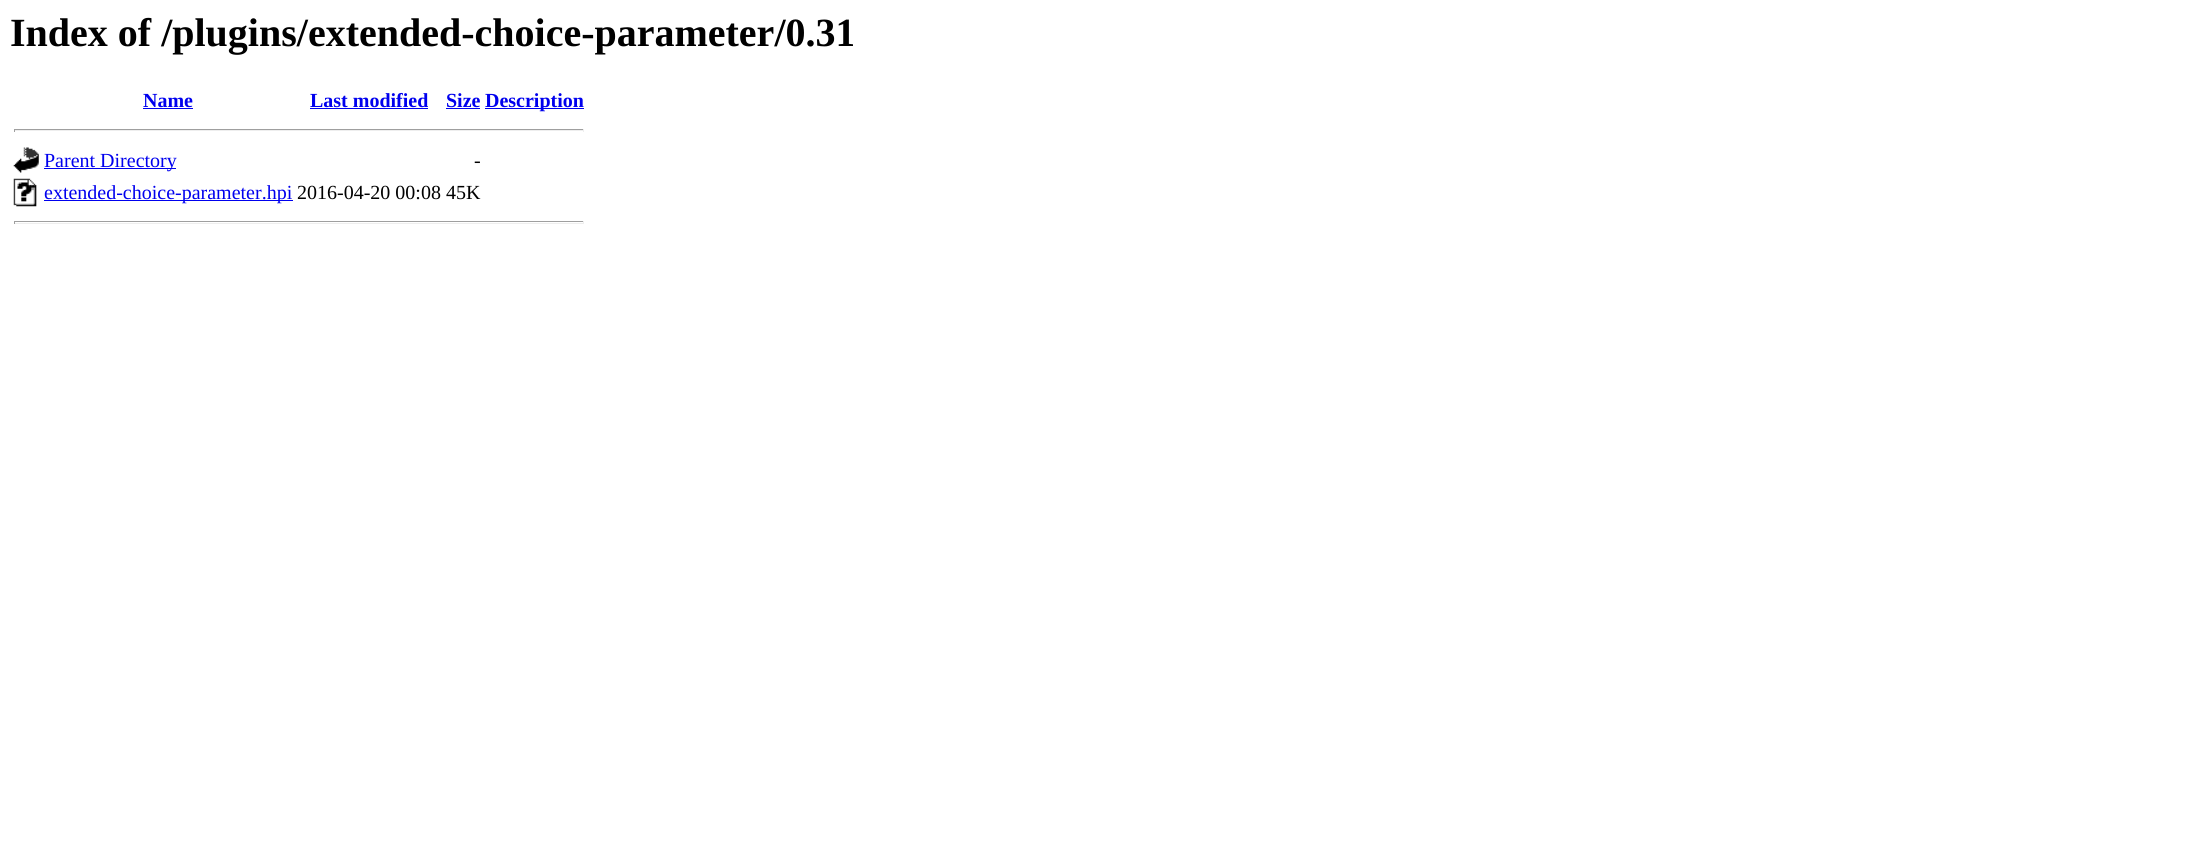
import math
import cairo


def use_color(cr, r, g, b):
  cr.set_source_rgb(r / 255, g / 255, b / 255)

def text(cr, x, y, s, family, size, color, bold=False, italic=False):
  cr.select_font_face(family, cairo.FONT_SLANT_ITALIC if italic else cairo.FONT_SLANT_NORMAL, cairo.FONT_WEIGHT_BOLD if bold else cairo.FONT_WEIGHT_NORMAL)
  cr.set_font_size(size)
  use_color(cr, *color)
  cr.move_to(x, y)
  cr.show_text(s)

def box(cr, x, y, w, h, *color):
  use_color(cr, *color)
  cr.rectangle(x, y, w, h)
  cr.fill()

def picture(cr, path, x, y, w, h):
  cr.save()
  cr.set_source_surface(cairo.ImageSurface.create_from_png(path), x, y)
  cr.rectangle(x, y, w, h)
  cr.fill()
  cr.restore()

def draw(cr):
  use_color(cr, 255, 255, 255)
  cr.paint()
  box(cr, 143, 108, 50, 1, 0, 0, 238)
  box(cr, 310, 108, 118, 1, 0, 0, 238)
  box(cr, 446, 108, 34, 1, 0, 0, 238)
  box(cr, 485, 108, 99, 1, 0, 0, 238)
  box(cr, 14, 129, 570, 1, 159, 159, 159)
  box(cr, 583, 129, 1, 3, 238, 238, 238)
  box(cr, 14, 130, 570, 1, 238, 238, 238)
  box(cr, 14, 129, 1, 3, 159, 159, 159)
  picture(cr, "img_01.png", 13, 147, 26, 26)
  box(cr, 44, 168, 132, 1, 0, 0, 238)
  picture(cr, "img_02.png", 13, 178, 24, 29)
  box(cr, 44, 200, 249, 1, 0, 0, 238)
  box(cr, 14, 221, 570, 1, 159, 159, 159)
  box(cr, 583, 221, 1, 3, 238, 238, 238)
  box(cr, 14, 223, 570, 1, 238, 238, 238)
  box(cr, 14, 221, 1, 3, 159, 159, 159)
  text(cr, 10, 46, "Index of /plugins/extended-choice-parameter/0.31", "Liberation Serif", 40, (0, 0, 0), bold=True)
  text(cr, 143, 107, "Name", "Liberation Serif", 20, (0, 0, 238), bold=True)
  text(cr, 310, 107, "Last modified", "Liberation Serif", 20, (0, 0, 238), bold=True)
  text(cr, 446, 107, "Size", "Liberation Serif", 20, (0, 0, 238), bold=True)
  text(cr, 485, 107, "Description", "Liberation Serif", 20, (0, 0, 238), bold=True)
  text(cr, 44, 167, "Parent Directory", "Liberation Serif", 20, (0, 0, 238))
  text(cr, 474, 167, "-", "Liberation Serif", 20, (0, 0, 0))
  text(cr, 44, 199, "extended-choice-parameter.hpi", "Liberation Serif", 20, (0, 0, 238))
  text(cr, 297, 199, "2016-04-20 00:08 45K", "Liberation Serif", 20, (0, 0, 0))


surface = cairo.ImageSurface(cairo.FORMAT_RGB24, 2192, 850)
cr = cairo.Context(surface)
options = cairo.FontOptions()
options.set_hint_metrics(cairo.HINT_METRICS_OFF)
options.set_hint_style(cairo.HINT_STYLE_NONE)
cr.set_font_options(options)
cr.set_miter_limit(4)
draw(cr)
surface.write_to_png("out.png")
